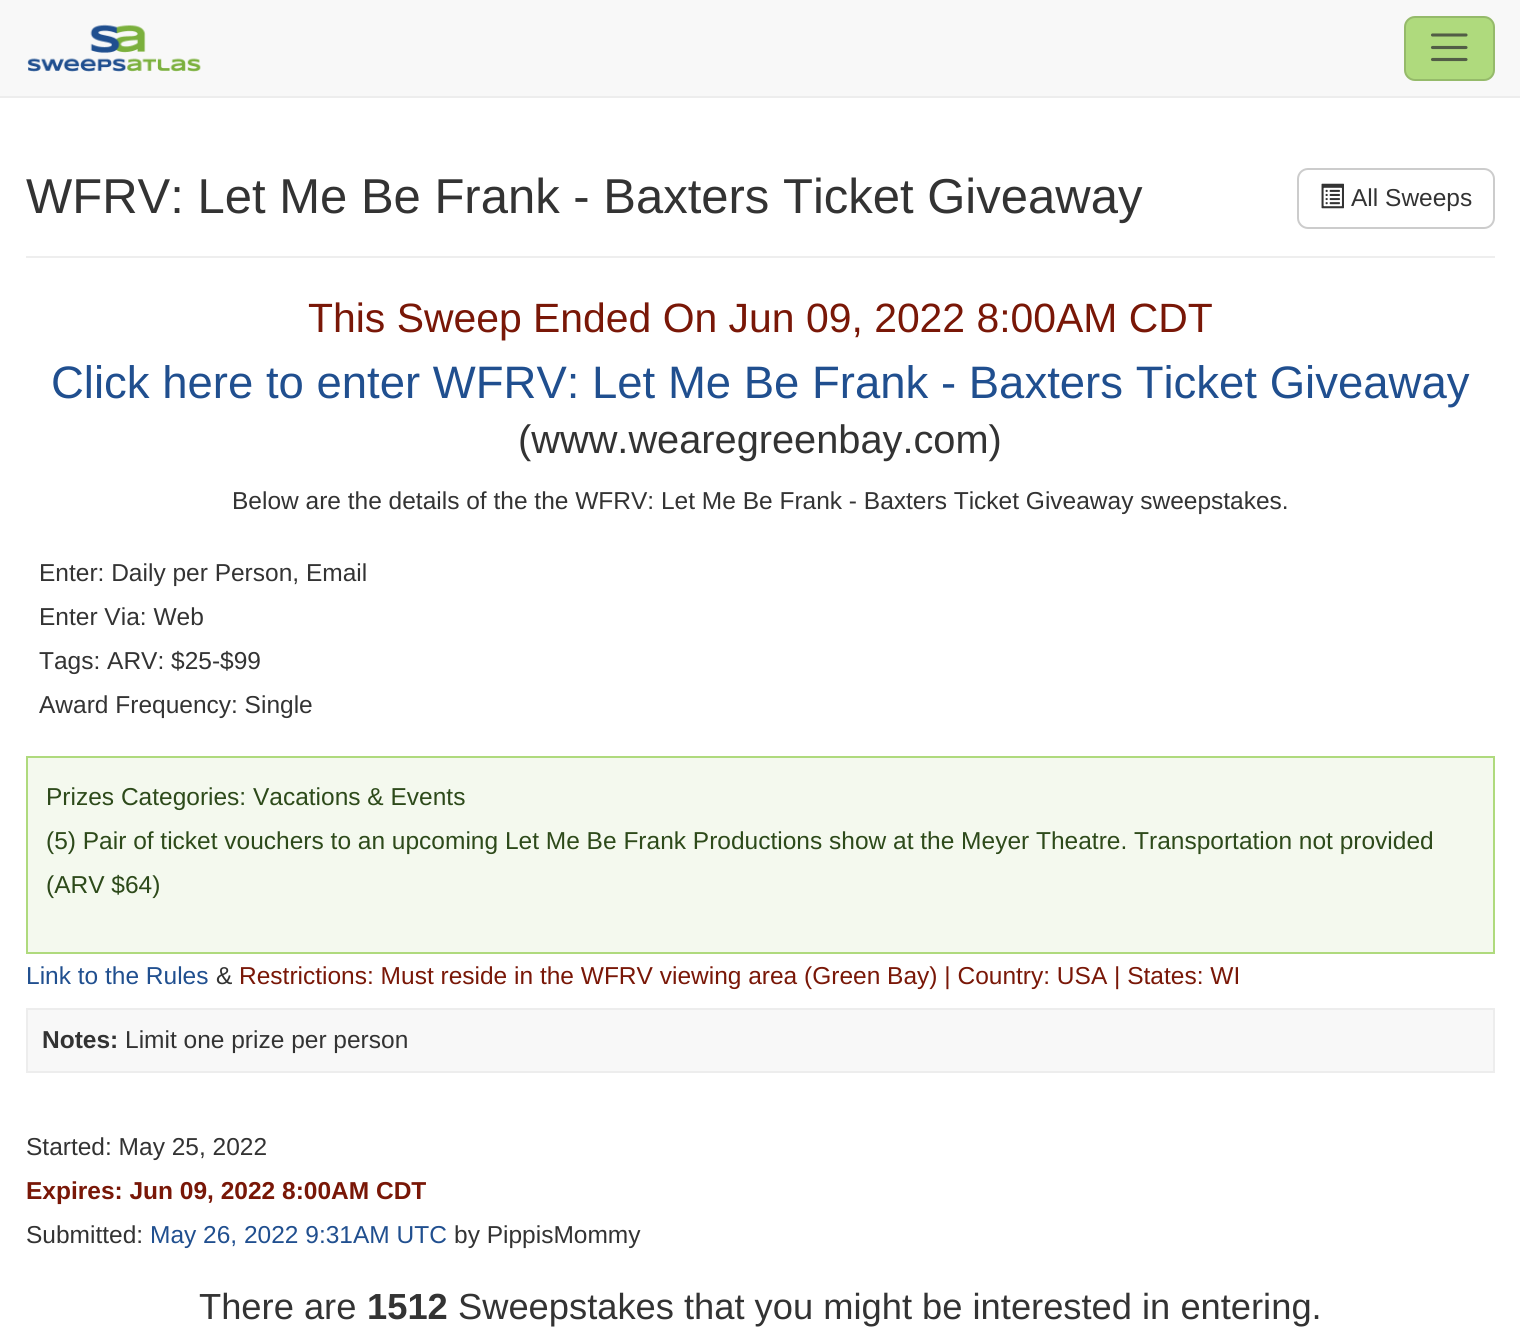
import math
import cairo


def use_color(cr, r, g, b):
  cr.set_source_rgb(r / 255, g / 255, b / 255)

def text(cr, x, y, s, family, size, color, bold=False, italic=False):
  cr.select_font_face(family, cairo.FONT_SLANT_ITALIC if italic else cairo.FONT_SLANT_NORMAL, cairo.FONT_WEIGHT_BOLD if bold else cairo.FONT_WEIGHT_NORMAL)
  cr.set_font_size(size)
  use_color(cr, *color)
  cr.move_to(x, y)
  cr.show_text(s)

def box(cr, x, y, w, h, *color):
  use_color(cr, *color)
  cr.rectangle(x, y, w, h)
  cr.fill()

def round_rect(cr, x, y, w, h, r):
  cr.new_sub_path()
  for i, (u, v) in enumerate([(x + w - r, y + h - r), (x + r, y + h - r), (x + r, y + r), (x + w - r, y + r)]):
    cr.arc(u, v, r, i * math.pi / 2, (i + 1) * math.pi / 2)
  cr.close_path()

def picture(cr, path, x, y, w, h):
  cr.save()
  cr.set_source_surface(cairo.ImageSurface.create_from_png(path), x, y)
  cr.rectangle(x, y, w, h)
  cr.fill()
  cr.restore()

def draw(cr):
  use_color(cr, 255, 255, 255)
  cr.paint()
  box(cr, 0, 0, 1520, 96, 248, 248, 248)
  box(cr, 0, 96, 1520, 2, 237, 237, 237)
  picture(cr, "img_01.png", 27, 24, 174, 48)
  use_color(cr, 175, 218, 125)
  round_rect(cr, 1404, 16, 91, 65, 11)
  cr.fill()
  round_rect(cr, 1405, 17, 89, 63, 10)
  cr.set_source_rgba(0, 0, 0, 0.15)
  cr.stroke()
  cr.new_path()
  cr.move_to(1432.5, 35)
  cr.line_to(1466, 35)
  cr.move_to(1432.5, 47.5)
  cr.line_to(1466, 47.5)
  cr.move_to(1432.5, 59.5)
  cr.line_to(1466, 59.5)
  use_color(cr, 82, 93, 70)
  cr.set_line_width(3.1)
  cr.set_line_cap(cairo.LINE_CAP_ROUND)
  cr.stroke()
  box(cr, 26, 256, 1469, 2, 238, 238, 238)
  round_rect(cr, 1298, 169, 196, 59, 10)
  use_color(cr, 204, 204, 204)
  cr.set_line_width(2)
  cr.set_line_cap(cairo.LINE_CAP_BUTT)
  cr.stroke()
  picture(cr, "img_02.png", 1321, 183, 23, 26)
  use_color(cr, 244, 249, 238)
  cr.rectangle(27, 757, 1467, 196)
  cr.fill_preserve()
  use_color(cr, 175, 218, 125)
  cr.stroke()
  use_color(cr, 248, 248, 248)
  cr.rectangle(27, 1009, 1467, 63)
  cr.fill_preserve()
  use_color(cr, 237, 237, 237)
  cr.stroke()
  text(cr, 26, 213, "WFRV: Let Me Be Frank - Baxters Ticket Giveaway", "Liberation Sans", 49, (51, 51, 51))
  text(cr, 1351, 206, "All Sweeps", "Liberation Sans", 24.5, (51, 51, 51))
  text(cr, 308, 332, "This Sweep Ended On Jun 09, 2022 8:00AM CDT", "Liberation Sans", 40.9, (121, 23, 7))
  text(cr, 51, 398, "Click here to enter WFRV:", "Liberation Sans", 45.5, (32, 79, 143))
  text(cr, 592, 398, "Let Me Be Frank - Baxters Ticket Giveaway", "Liberation Sans", 45.5, (32, 79, 143))
  text(cr, 518, 453, "(www.wearegreenbay.com)", "Liberation Sans", 39.75, (51, 51, 51))
  text(cr, 232, 509, "Below are the details of the the WFRV: Let Me Be Frank - Baxters Ticket Giveaway sweepstakes.", "Liberation Sans", 24.5, (51, 51, 51))
  text(cr, 39, 581, "Enter: Daily per Person, Email", "Liberation Sans", 24.5, (51, 51, 51))
  text(cr, 39, 625, "Enter Via: Web", "Liberation Sans", 24.5, (51, 51, 51))
  text(cr, 39, 669, "Tags: ARV: $25-$99", "Liberation Sans", 24.5, (51, 51, 51))
  text(cr, 39, 713, "Award Frequency: Single", "Liberation Sans", 24.5, (51, 51, 51))
  text(cr, 46, 805, "Prizes Categories: Vacations & Events", "Liberation Sans", 24.5, (45, 74, 26))
  text(cr, 46, 849, "(5) Pair of ticket vouchers to an upcoming Let Me Be Frank Productions show at the Meyer Theatre. Transportation not provided", "Liberation Sans", 24.5, (45, 74, 26))
  text(cr, 46, 893, "(ARV $64)", "Liberation Sans", 24.5, (45, 74, 26))
  text(cr, 26, 984, "Link to the Rules", "Liberation Sans", 24.5, (32, 79, 143))
  text(cr, 216, 984, "&", "Liberation Sans", 24.5, (51, 51, 51))
  text(cr, 239, 984, "Restrictions: Must reside in the WFRV viewing area (Green Bay) | Country: USA | States: WI", "Liberation Sans", 24.5, (121, 23, 7))
  text(cr, 42, 1048, "Notes:", "Liberation Sans", 24.5, (51, 51, 51), bold=True)
  text(cr, 125, 1048, "Limit one prize per person", "Liberation Sans", 24.5, (51, 51, 51))
  text(cr, 26, 1155, "Started: May 25, 2022", "Liberation Sans", 24.5, (51, 51, 51))
  text(cr, 26, 1199, "Expires: Jun 09, 2022 8:00AM CDT", "Liberation Sans", 24.5, (121, 23, 7), bold=True)
  text(cr, 26, 1243, "Submitted:", "Liberation Sans", 24.5, (51, 51, 51))
  text(cr, 150, 1243, "May 26, 2022 9:31AM UTC", "Liberation Sans", 24.5, (32, 79, 143))
  text(cr, 454, 1243, "by PippisMommy", "Liberation Sans", 24.5, (51, 51, 51))
  text(cr, 199, 1319, "There are", "Liberation Sans", 36.3, (51, 51, 51))
  text(cr, 367, 1319, "1512", "Liberation Sans", 36.3, (51, 51, 51), bold=True)
  text(cr, 458, 1319, "Sweepstakes that you might be interested in entering.", "Liberation Sans", 36.3, (51, 51, 51))


surface = cairo.ImageSurface(cairo.FORMAT_RGB24, 1520, 1333)
cr = cairo.Context(surface)
options = cairo.FontOptions()
options.set_hint_metrics(cairo.HINT_METRICS_OFF)
options.set_hint_style(cairo.HINT_STYLE_NONE)
cr.set_font_options(options)
cr.set_miter_limit(4)
draw(cr)
surface.write_to_png("out.png")
